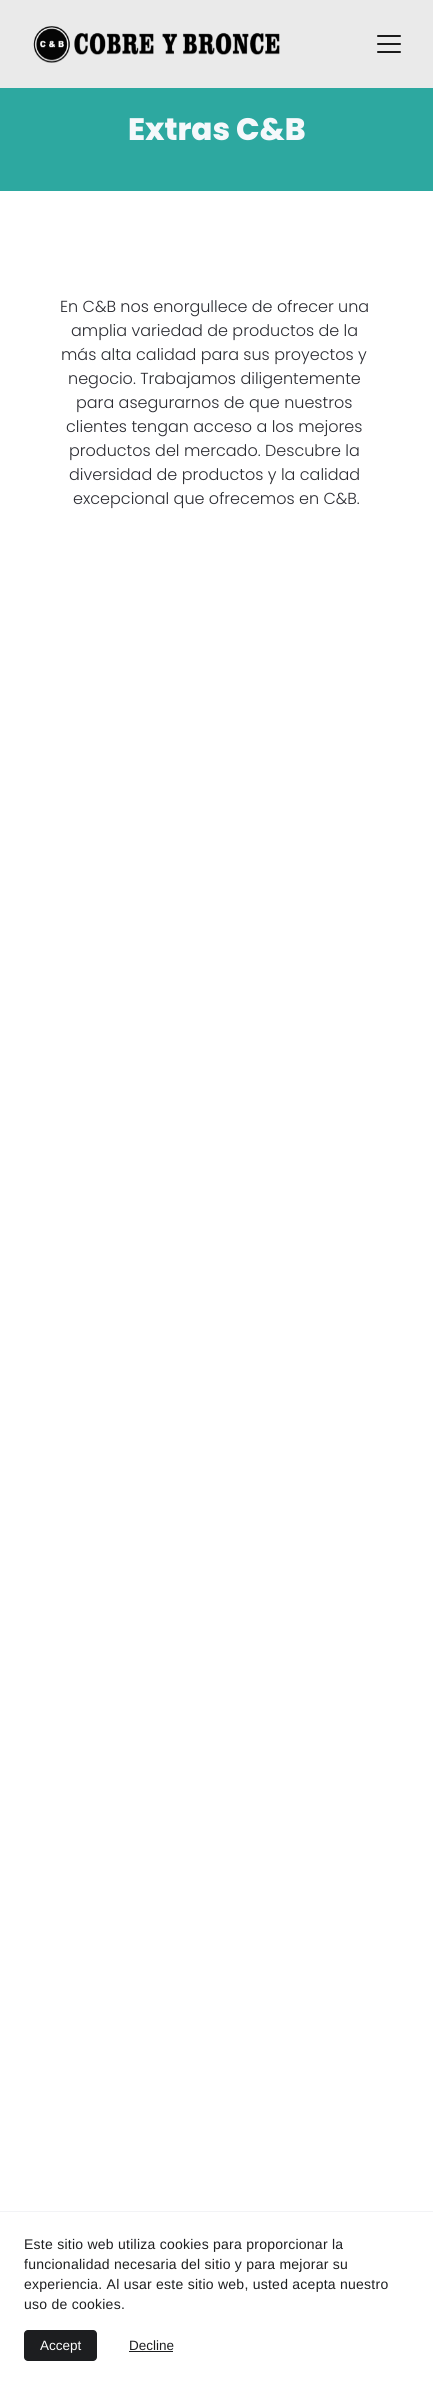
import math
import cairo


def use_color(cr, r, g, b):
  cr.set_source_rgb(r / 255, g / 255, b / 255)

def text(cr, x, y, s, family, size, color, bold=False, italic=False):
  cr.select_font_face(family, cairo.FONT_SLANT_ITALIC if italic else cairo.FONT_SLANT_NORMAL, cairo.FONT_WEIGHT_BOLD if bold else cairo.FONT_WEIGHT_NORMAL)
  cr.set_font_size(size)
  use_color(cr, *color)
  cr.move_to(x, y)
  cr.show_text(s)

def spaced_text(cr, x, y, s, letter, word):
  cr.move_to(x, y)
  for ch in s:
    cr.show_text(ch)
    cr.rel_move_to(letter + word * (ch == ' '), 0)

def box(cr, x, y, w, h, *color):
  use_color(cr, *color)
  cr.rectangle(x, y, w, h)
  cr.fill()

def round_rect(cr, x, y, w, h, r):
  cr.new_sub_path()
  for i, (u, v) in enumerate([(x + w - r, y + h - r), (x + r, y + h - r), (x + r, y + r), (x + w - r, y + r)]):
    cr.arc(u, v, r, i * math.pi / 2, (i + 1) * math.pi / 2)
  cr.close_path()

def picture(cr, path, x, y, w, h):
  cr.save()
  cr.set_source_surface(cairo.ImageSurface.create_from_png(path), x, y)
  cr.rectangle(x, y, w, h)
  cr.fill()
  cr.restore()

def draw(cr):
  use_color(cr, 255, 255, 255)
  cr.paint()
  box(cr, 0, 0, 433, 88, 234, 234, 234)
  picture(cr, "img_01.png", 33, 26, 247, 37)
  use_color(cr, 26, 26, 26)
  round_rect(cr, 377, 35, 24, 2, 1)
  cr.fill()
  round_rect(cr, 377, 43, 24, 2, 1)
  cr.fill()
  round_rect(cr, 377, 51, 24, 2, 1)
  cr.fill()
  box(cr, 0, 88, 433, 103, 45, 168, 160)
  box(cr, 0, 2211, 433, 1, 242, 243, 246)
  use_color(cr, 29, 30, 32)
  round_rect(cr, 24, 2330, 73, 31, 4)
  cr.fill()
  box(cr, 129, 2351, 44, 1, 29, 30, 32)
  text(cr, 128, 140, "Extras C&B", "Poppins ExtraBold", 31, (245, 248, 251))
  text(cr, 60, 312, "En C&B nos enorgullece de ofrecer una", "Poppins Light", 16, (43, 44, 50))
  text(cr, 71, 336, "amplia variedad de productos de la", "Poppins Light", 16, (43, 44, 50))
  text(cr, 61, 360, "más alta calidad para sus proyectos y", "Poppins Light", 16, (43, 44, 50))
  text(cr, 68, 384, "negocio. Trabajamos diligentemente", "Poppins Light", 16, (43, 44, 50))
  text(cr, 76, 408, "para asegurarnos de que nuestros", "Poppins Light", 16, (43, 44, 50))
  text(cr, 66, 432, "clientes tengan acceso a los mejores", "Poppins Light", 16, (43, 44, 50))
  text(cr, 69, 456, "productos del mercado. Descubre la", "Poppins Light", 16, (43, 44, 50))
  text(cr, 69, 480, "diversidad de productos y la calidad", "Poppins Light", 16, (43, 44, 50))
  text(cr, 73, 504, "excepcional que ofrecemos en C&B.", "Poppins Light", 16, (43, 44, 50))
  cr.select_font_face("Liberation Sans")
  cr.set_font_size(14)
  use_color(cr, 29, 30, 32)
  spaced_text(cr, 24, 2249, "Este sitio web utiliza cookies para proporcionar la", 0.25, 0)
  spaced_text(cr, 24, 2269, "funcionalidad necesaria del sitio y para mejorar su", 0.25, 0)
  spaced_text(cr, 24, 2289, "experiencia. Al usar este sitio web, usted acepta nuestro", 0.25, 0)
  spaced_text(cr, 24, 2309, "uso de cookies.", 0.25, 0)
  text(cr, 40, 2350, "Accept", "Liberation Sans", 13.5, (255, 255, 255))
  text(cr, 129, 2350, "Decline", "Liberation Sans", 13.5, (29, 30, 32))


surface = cairo.ImageSurface(cairo.FORMAT_RGB24, 433, 2383)
cr = cairo.Context(surface)
options = cairo.FontOptions()
options.set_hint_metrics(cairo.HINT_METRICS_OFF)
options.set_hint_style(cairo.HINT_STYLE_NONE)
cr.set_font_options(options)
cr.set_miter_limit(4)
draw(cr)
surface.write_to_png("out.png")
